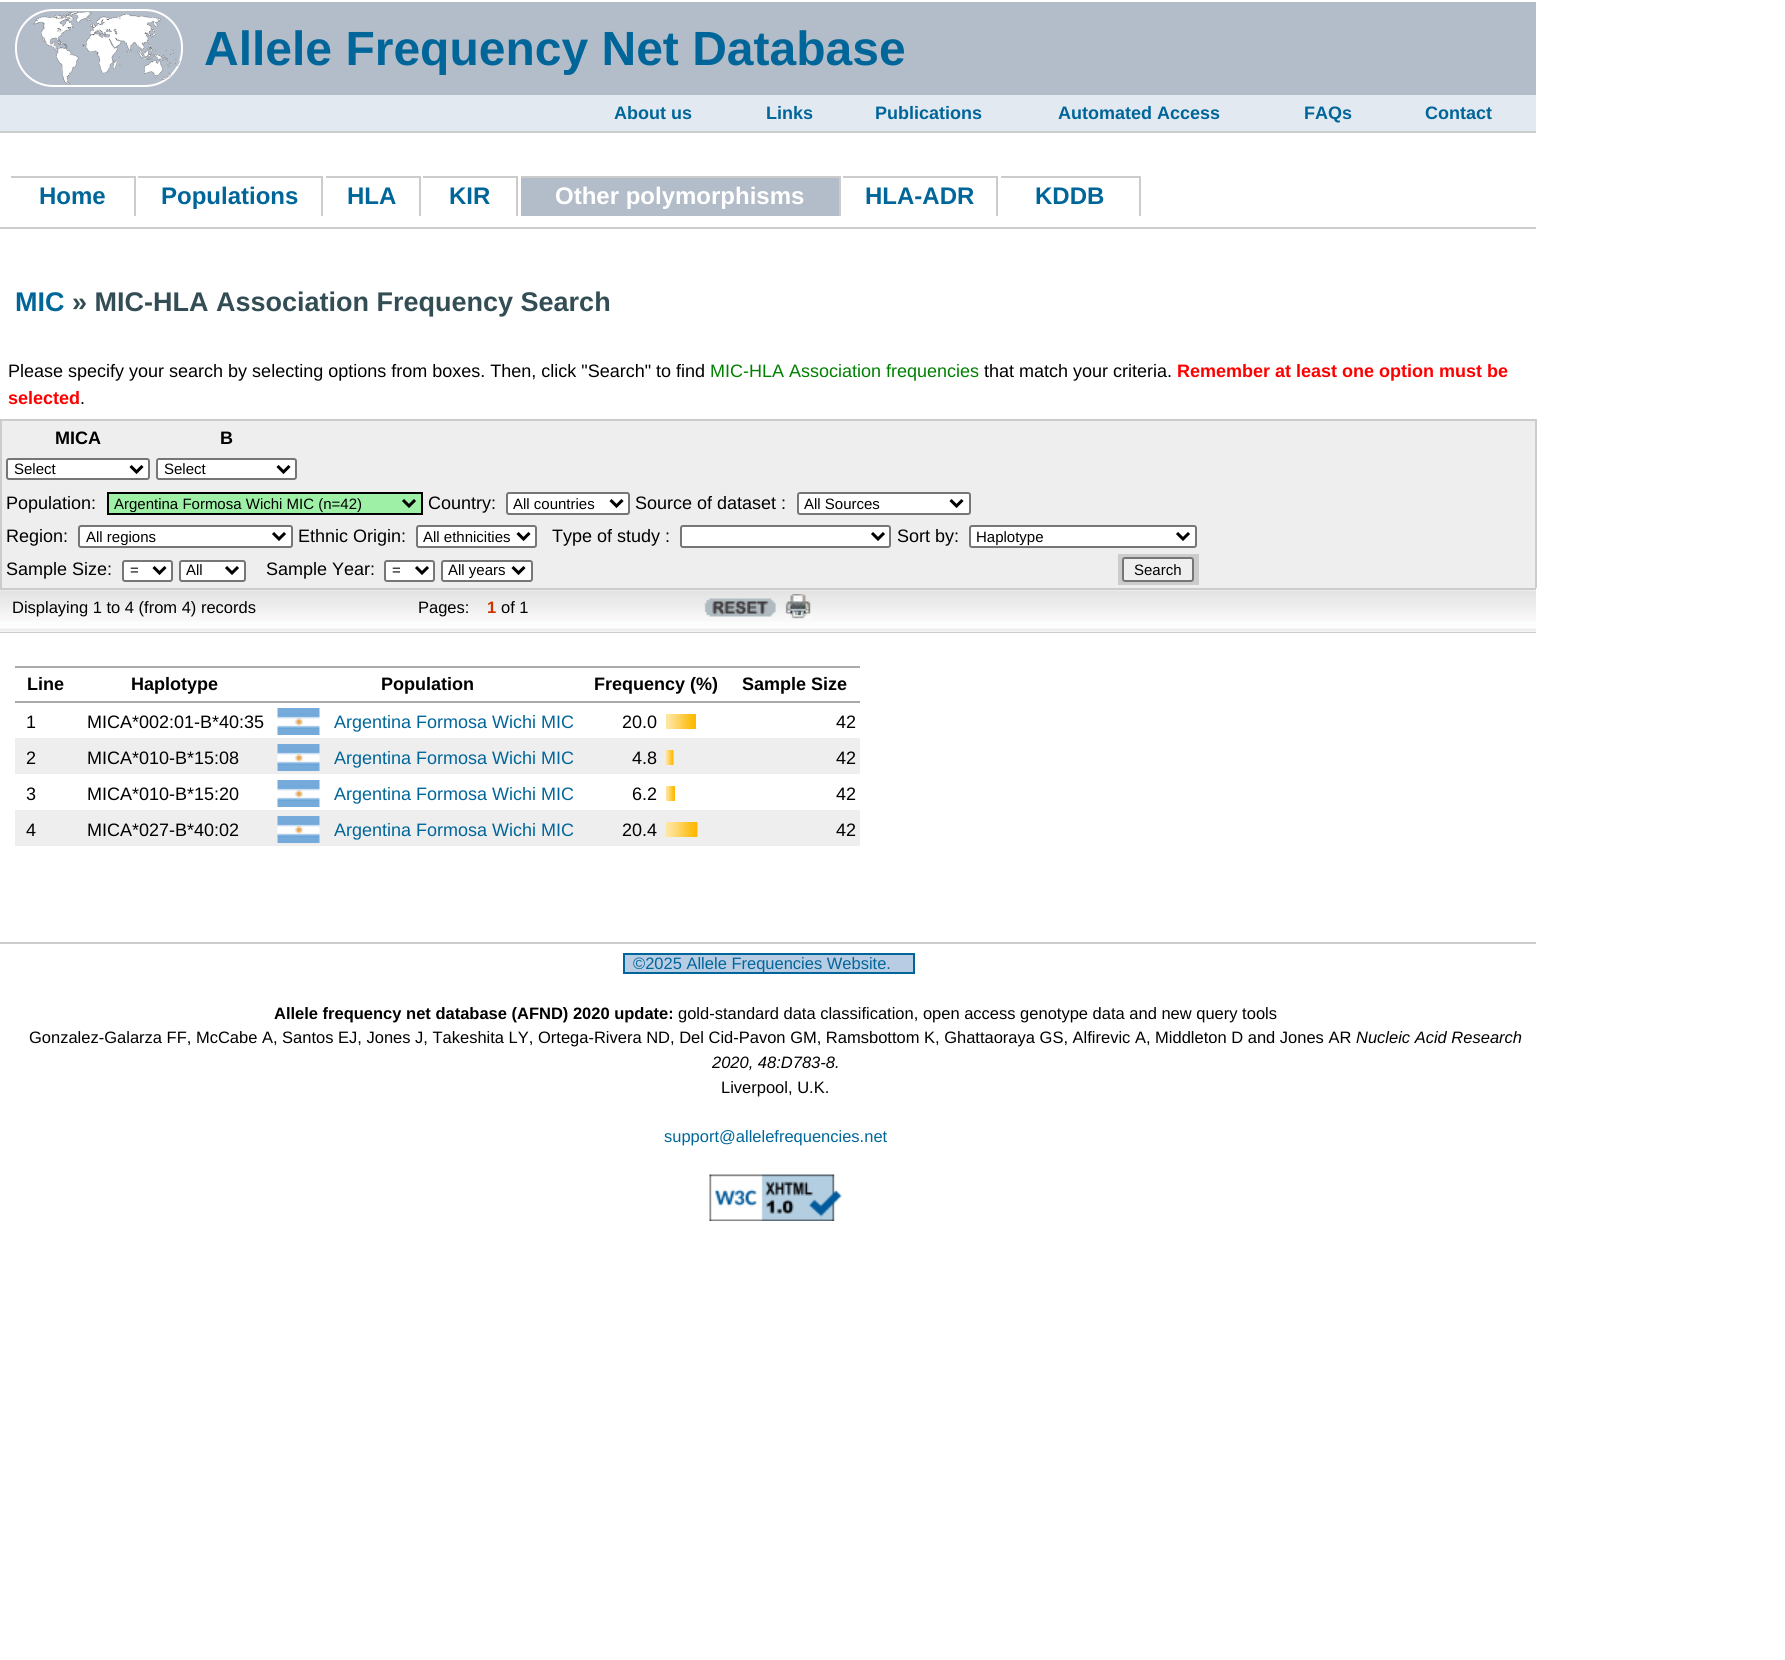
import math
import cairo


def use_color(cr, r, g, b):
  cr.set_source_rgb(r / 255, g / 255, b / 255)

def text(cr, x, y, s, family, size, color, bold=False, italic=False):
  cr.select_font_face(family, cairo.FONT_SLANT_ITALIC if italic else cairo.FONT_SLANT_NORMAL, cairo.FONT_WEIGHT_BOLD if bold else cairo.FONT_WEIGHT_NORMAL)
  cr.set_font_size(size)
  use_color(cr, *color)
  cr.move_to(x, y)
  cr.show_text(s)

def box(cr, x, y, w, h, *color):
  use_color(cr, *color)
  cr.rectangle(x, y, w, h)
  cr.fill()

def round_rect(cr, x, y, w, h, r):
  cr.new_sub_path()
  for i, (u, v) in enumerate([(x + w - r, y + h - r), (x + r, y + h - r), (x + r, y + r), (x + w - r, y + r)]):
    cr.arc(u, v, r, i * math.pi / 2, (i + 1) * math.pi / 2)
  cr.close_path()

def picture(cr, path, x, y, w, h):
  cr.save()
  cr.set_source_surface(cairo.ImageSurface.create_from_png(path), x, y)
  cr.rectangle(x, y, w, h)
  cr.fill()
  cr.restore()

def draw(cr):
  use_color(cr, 255, 255, 255)
  cr.paint()
  box(cr, 0, 2, 1536, 93, 179, 188, 201)
  round_rect(cr, 16, 10, 166, 76, 37)
  use_color(cr, 255, 255, 255)
  cr.stroke()
  picture(cr, "img_01.png", 33, 11, 147, 74)
  box(cr, 0, 95, 1536, 36, 227, 233, 241)
  box(cr, 0, 131, 1536, 2, 204, 204, 204)
  box(cr, 0, 227, 1536, 2, 204, 204, 204)
  box(cr, 11, 176, 124, 2, 204, 204, 204)
  box(cr, 134, 176, 2, 40, 204, 204, 204)
  box(cr, 138, 176, 185, 2, 204, 204, 204)
  box(cr, 321, 176, 2, 40, 204, 204, 204)
  box(cr, 326, 176, 94, 2, 204, 204, 204)
  box(cr, 419, 176, 2, 40, 204, 204, 204)
  box(cr, 423, 176, 95, 2, 204, 204, 204)
  box(cr, 516, 176, 2, 40, 204, 204, 204)
  box(cr, 521, 178, 318, 38, 179, 188, 201)
  box(cr, 521, 176, 319, 2, 204, 204, 204)
  box(cr, 839, 176, 2, 40, 204, 204, 204)
  box(cr, 843, 176, 155, 2, 204, 204, 204)
  box(cr, 996, 176, 2, 40, 204, 204, 204)
  box(cr, 1001, 176, 139, 2, 204, 204, 204)
  box(cr, 1139, 176, 2, 40, 204, 204, 204)
  box(cr, 2, 421, 1533, 167, 238, 238, 238)
  box(cr, 0, 419, 1536, 2, 204, 204, 204)
  box(cr, 1535, 419, 2, 169, 204, 204, 204)
  box(cr, 0, 419, 2, 169, 204, 204, 204)
  use_color(cr, 255, 255, 255)
  round_rect(cr, 7, 459, 142, 20, 2)
  cr.fill_preserve()
  use_color(cr, 118, 118, 118)
  cr.stroke()
  cr.new_path()
  cr.move_to(130.5, 466)
  cr.line_to(136.5, 472)
  cr.line_to(142.5, 466)
  use_color(cr, 0, 0, 0)
  cr.set_line_width(3)
  cr.stroke()
  use_color(cr, 255, 255, 255)
  round_rect(cr, 157, 459, 139, 20, 2)
  cr.fill_preserve()
  use_color(cr, 118, 118, 118)
  cr.set_line_width(2)
  cr.stroke()
  cr.new_path()
  cr.move_to(277.5, 466)
  cr.line_to(283.5, 472)
  cr.line_to(289.5, 466)
  use_color(cr, 0, 0, 0)
  cr.set_line_width(3)
  cr.stroke()
  use_color(cr, 158, 240, 166)
  cr.rectangle(108, 493, 314, 21)
  cr.fill_preserve()
  use_color(cr, 0, 0, 0)
  cr.set_line_width(2)
  cr.stroke()
  cr.new_path()
  cr.move_to(403, 500)
  cr.line_to(409, 506)
  cr.line_to(415, 500)
  cr.set_line_width(3)
  cr.stroke()
  use_color(cr, 255, 255, 255)
  round_rect(cr, 507, 493, 122, 21, 2)
  cr.fill_preserve()
  use_color(cr, 118, 118, 118)
  cr.set_line_width(2)
  cr.stroke()
  cr.new_path()
  cr.move_to(610.5, 500)
  cr.line_to(616.5, 506)
  cr.line_to(622.5, 500)
  use_color(cr, 0, 0, 0)
  cr.set_line_width(3)
  cr.stroke()
  use_color(cr, 255, 255, 255)
  round_rect(cr, 798, 493, 172, 21, 2)
  cr.fill_preserve()
  use_color(cr, 118, 118, 118)
  cr.set_line_width(2)
  cr.stroke()
  cr.new_path()
  cr.move_to(950.5, 500)
  cr.line_to(956.5, 506)
  cr.line_to(962.5, 500)
  use_color(cr, 0, 0, 0)
  cr.set_line_width(3)
  cr.stroke()
  use_color(cr, 255, 255, 255)
  round_rect(cr, 79, 526, 213, 21, 2)
  cr.fill_preserve()
  use_color(cr, 118, 118, 118)
  cr.set_line_width(2)
  cr.stroke()
  cr.new_path()
  cr.move_to(273, 533)
  cr.line_to(279, 539)
  cr.line_to(285, 533)
  use_color(cr, 0, 0, 0)
  cr.set_line_width(3)
  cr.stroke()
  use_color(cr, 255, 255, 255)
  round_rect(cr, 417, 526, 119, 21, 2)
  cr.fill_preserve()
  use_color(cr, 118, 118, 118)
  cr.set_line_width(2)
  cr.stroke()
  cr.new_path()
  cr.move_to(517.5, 533)
  cr.line_to(523.5, 539)
  cr.line_to(529.5, 533)
  use_color(cr, 0, 0, 0)
  cr.set_line_width(3)
  cr.stroke()
  use_color(cr, 255, 255, 255)
  round_rect(cr, 681, 526, 209, 21, 2)
  cr.fill_preserve()
  use_color(cr, 118, 118, 118)
  cr.set_line_width(2)
  cr.stroke()
  cr.new_path()
  cr.move_to(872, 533)
  cr.line_to(878, 539)
  cr.line_to(884, 533)
  use_color(cr, 0, 0, 0)
  cr.set_line_width(3)
  cr.stroke()
  use_color(cr, 255, 255, 255)
  round_rect(cr, 970, 526, 226, 21, 2)
  cr.fill_preserve()
  use_color(cr, 118, 118, 118)
  cr.set_line_width(2)
  cr.stroke()
  cr.new_path()
  cr.move_to(1177, 533)
  cr.line_to(1183, 539)
  cr.line_to(1189, 533)
  use_color(cr, 0, 0, 0)
  cr.set_line_width(3)
  cr.stroke()
  use_color(cr, 255, 255, 255)
  round_rect(cr, 123, 561, 49, 20, 2)
  cr.fill_preserve()
  use_color(cr, 118, 118, 118)
  cr.set_line_width(2)
  cr.stroke()
  cr.new_path()
  cr.move_to(153.5, 567)
  cr.line_to(159.5, 573)
  cr.line_to(165.5, 567)
  use_color(cr, 0, 0, 0)
  cr.set_line_width(3)
  cr.stroke()
  use_color(cr, 255, 255, 255)
  round_rect(cr, 180, 561, 65, 20, 2)
  cr.fill_preserve()
  use_color(cr, 118, 118, 118)
  cr.set_line_width(2)
  cr.stroke()
  cr.new_path()
  cr.move_to(226, 567)
  cr.line_to(232, 573)
  cr.line_to(238, 567)
  use_color(cr, 0, 0, 0)
  cr.set_line_width(3)
  cr.stroke()
  use_color(cr, 255, 255, 255)
  round_rect(cr, 385, 561, 49, 20, 2)
  cr.fill_preserve()
  use_color(cr, 118, 118, 118)
  cr.set_line_width(2)
  cr.stroke()
  cr.new_path()
  cr.move_to(416, 567)
  cr.line_to(422, 573)
  cr.line_to(428, 567)
  use_color(cr, 0, 0, 0)
  cr.set_line_width(3)
  cr.stroke()
  use_color(cr, 255, 255, 255)
  round_rect(cr, 442, 561, 90, 20, 2)
  cr.fill_preserve()
  use_color(cr, 118, 118, 118)
  cr.set_line_width(2)
  cr.stroke()
  cr.new_path()
  cr.move_to(512.5, 567)
  cr.line_to(518.5, 573)
  cr.line_to(524.5, 567)
  use_color(cr, 0, 0, 0)
  cr.set_line_width(3)
  cr.stroke()
  box(cr, 1118, 554, 81, 31, 204, 204, 204)
  use_color(cr, 239, 239, 239)
  round_rect(cr, 1123, 558, 70, 23, 2)
  cr.fill_preserve()
  use_color(cr, 118, 118, 118)
  cr.set_line_width(2)
  cr.stroke()
  picture(cr, "img_02.png", 0, 590, 1536, 42)
  box(cr, 0, 588, 1536, 2, 204, 204, 204)
  box(cr, 0, 632, 1536, 1, 204, 204, 204)
  picture(cr, "img_03.png", 704, 598, 72, 19)
  picture(cr, "img_04.png", 785, 594, 26, 25)
  box(cr, 15, 666, 845, 2, 170, 170, 170)
  box(cr, 15, 701, 845, 2, 170, 170, 170)
  picture(cr, "img_05.png", 277, 708, 43, 27)
  picture(cr, "img_06.png", 666, 714, 30, 15)
  box(cr, 15, 738, 845, 36, 238, 238, 238)
  picture(cr, "img_07.png", 277, 744, 43, 27)
  picture(cr, "img_08.png", 666, 750, 8, 15)
  picture(cr, "img_05.png", 277, 780, 43, 27)
  picture(cr, "img_09.png", 666, 786, 9, 15)
  box(cr, 15, 810, 845, 36, 238, 238, 238)
  picture(cr, "img_07.png", 277, 816, 43, 27)
  picture(cr, "img_10.png", 666, 822, 32, 15)
  box(cr, 0, 942, 1536, 2, 204, 204, 204)
  use_color(cr, 184, 204, 228)
  cr.rectangle(624, 954, 290, 19)
  cr.fill_preserve()
  use_color(cr, 0, 102, 153)
  cr.stroke()
  picture(cr, "img_11.png", 709, 1174, 133, 47)
  text(cr, 204, 65, "Allele Frequency Net Database", "Liberation Sans", 48, (0, 102, 153), bold=True)
  text(cr, 614, 119, "About us", "Liberation Sans", 18, (0, 102, 153), bold=True)
  text(cr, 766, 119, "Links", "Liberation Sans", 18, (0, 102, 153), bold=True)
  text(cr, 875, 119, "Publications", "Liberation Sans", 18, (0, 102, 153), bold=True)
  text(cr, 1058, 119, "Automated Access", "Liberation Sans", 18, (0, 102, 153), bold=True)
  text(cr, 1304, 119, "FAQs", "Liberation Sans", 18, (0, 102, 153), bold=True)
  text(cr, 1425, 119, "Contact", "Liberation Sans", 18, (0, 102, 153), bold=True)
  text(cr, 39, 204, "Home", "Liberation Sans", 24, (0, 102, 153), bold=True)
  text(cr, 161, 204, "Populations", "Liberation Sans", 24, (0, 102, 153), bold=True)
  text(cr, 347, 204, "HLA", "Liberation Sans", 24, (0, 102, 153), bold=True)
  text(cr, 449, 204, "KIR", "Liberation Sans", 24, (0, 102, 153), bold=True)
  text(cr, 555, 204, "Other polymorphisms", "Liberation Sans", 24, (255, 255, 255), bold=True)
  text(cr, 865, 204, "HLA-ADR", "Liberation Sans", 24, (0, 102, 153), bold=True)
  text(cr, 1035, 204, "KDDB", "Liberation Sans", 24, (0, 102, 153), bold=True)
  text(cr, 15, 311, "MIC", "Liberation Sans", 27, (0, 102, 153), bold=True)
  text(cr, 72, 311, "» MIC-HLA Association Frequency Search", "Liberation Sans", 27, (51, 77, 85), bold=True)
  text(cr, 8, 377, "Please specify your search by selecting options from boxes. Then, click \"Search\" to find", "Liberation Sans", 18, (0, 0, 0))
  text(cr, 710, 377, "MIC-HLA Association frequencies", "Liberation Sans", 18, (0, 128, 0))
  text(cr, 984, 377, "that match your criteria.", "Liberation Sans", 18, (0, 0, 0))
  text(cr, 1177, 377, "Remember at least one option must be", "Liberation Sans", 18, (255, 0, 0), bold=True)
  text(cr, 8, 404, "selected", "Liberation Sans", 18, (255, 0, 0), bold=True)
  text(cr, 80, 404, ".", "Liberation Sans", 18, (0, 0, 0))
  text(cr, 55, 444, "MICA", "Liberation Sans", 18, (0, 0, 0), bold=True)
  text(cr, 220, 444, "B", "Liberation Sans", 18, (0, 0, 0), bold=True)
  text(cr, 14, 474, "Select", "Liberation Sans", 15, (0, 0, 0))
  text(cr, 164, 474, "Select", "Liberation Sans", 15, (0, 0, 0))
  text(cr, 6, 509, "Population:", "Liberation Sans", 18, (0, 0, 0))
  text(cr, 114, 509, "Argentina Formosa Wichi MIC (n=42)", "Liberation Sans", 15, (0, 0, 0))
  text(cr, 428, 509, "Country:", "Liberation Sans", 18, (0, 0, 0))
  text(cr, 513, 509, "All countries", "Liberation Sans", 15, (0, 0, 0))
  text(cr, 635, 509, "Source of dataset :", "Liberation Sans", 18, (0, 0, 0))
  text(cr, 804, 509, "All Sources", "Liberation Sans", 15, (0, 0, 0))
  text(cr, 6, 542, "Region:", "Liberation Sans", 18, (0, 0, 0))
  text(cr, 86, 542, "All regions", "Liberation Sans", 15, (0, 0, 0))
  text(cr, 298, 542, "Ethnic Origin:", "Liberation Sans", 18, (0, 0, 0))
  text(cr, 423, 542, "All ethnicities", "Liberation Sans", 15, (0, 0, 0))
  text(cr, 552, 542, "Type of study :", "Liberation Sans", 18, (0, 0, 0))
  text(cr, 897, 542, "Sort by:", "Liberation Sans", 18, (0, 0, 0))
  text(cr, 976, 542, "Haplotype", "Liberation Sans", 15, (0, 0, 0))
  text(cr, 6, 575, "Sample Size:", "Liberation Sans", 18, (0, 0, 0))
  text(cr, 130, 575, "=", "Liberation Sans", 15, (0, 0, 0))
  text(cr, 186, 575, "All", "Liberation Sans", 15, (0, 0, 0))
  text(cr, 266, 575, "Sample Year:", "Liberation Sans", 18, (0, 0, 0))
  text(cr, 392, 575, "=", "Liberation Sans", 15, (0, 0, 0))
  text(cr, 448, 575, "All years", "Liberation Sans", 15, (0, 0, 0))
  text(cr, 1134, 575, "Search", "Liberation Sans", 15, (0, 0, 0))
  text(cr, 12, 613, "Displaying 1 to 4 (from 4) records", "Liberation Sans", 16.5, (0, 0, 0))
  text(cr, 418, 613, "Pages:", "Liberation Sans", 16.5, (0, 0, 0))
  text(cr, 487, 613, "1", "Liberation Sans", 16.5, (204, 51, 0), bold=True)
  text(cr, 501, 613, "of 1", "Liberation Sans", 16.5, (0, 0, 0))
  text(cr, 27, 690, "Line", "Liberation Sans", 18, (0, 0, 0), bold=True)
  text(cr, 131, 690, "Haplotype", "Liberation Sans", 18, (0, 0, 0), bold=True)
  text(cr, 381, 690, "Population", "Liberation Sans", 18, (0, 0, 0), bold=True)
  text(cr, 594, 690, "Frequency (%)", "Liberation Sans", 18, (0, 0, 0), bold=True)
  text(cr, 742, 690, "Sample Size", "Liberation Sans", 18, (0, 0, 0), bold=True)
  text(cr, 26, 728, "1", "Liberation Sans", 18, (0, 0, 0))
  text(cr, 87, 728, "MICA*002:01-B*40:35", "Liberation Sans", 18, (0, 0, 0))
  text(cr, 334, 728, "Argentina Formosa Wichi MIC", "Liberation Sans", 18, (0, 102, 153))
  text(cr, 622, 728, "20.0", "Liberation Sans", 18, (0, 0, 0))
  text(cr, 836, 728, "42", "Liberation Sans", 18, (0, 0, 0))
  text(cr, 26, 764, "2", "Liberation Sans", 18, (0, 0, 0))
  text(cr, 87, 764, "MICA*010-B*15:08", "Liberation Sans", 18, (0, 0, 0))
  text(cr, 334, 764, "Argentina Formosa Wichi MIC", "Liberation Sans", 18, (0, 102, 153))
  text(cr, 632, 764, "4.8", "Liberation Sans", 18, (0, 0, 0))
  text(cr, 836, 764, "42", "Liberation Sans", 18, (0, 0, 0))
  text(cr, 26, 800, "3", "Liberation Sans", 18, (0, 0, 0))
  text(cr, 87, 800, "MICA*010-B*15:20", "Liberation Sans", 18, (0, 0, 0))
  text(cr, 334, 800, "Argentina Formosa Wichi MIC", "Liberation Sans", 18, (0, 102, 153))
  text(cr, 632, 800, "6.2", "Liberation Sans", 18, (0, 0, 0))
  text(cr, 836, 800, "42", "Liberation Sans", 18, (0, 0, 0))
  text(cr, 26, 836, "4", "Liberation Sans", 18, (0, 0, 0))
  text(cr, 87, 836, "MICA*027-B*40:02", "Liberation Sans", 18, (0, 0, 0))
  text(cr, 334, 836, "Argentina Formosa Wichi MIC", "Liberation Sans", 18, (0, 102, 153))
  text(cr, 622, 836, "20.4", "Liberation Sans", 18, (0, 0, 0))
  text(cr, 836, 836, "42", "Liberation Sans", 18, (0, 0, 0))
  text(cr, 633, 969, "©2025 Allele Frequencies Website.", "Liberation Sans", 16.5, (0, 102, 153))
  text(cr, 274, 1019, "Allele frequency net database (AFND) 2020 update:", "Liberation Sans", 16.5, (0, 0, 0), bold=True)
  text(cr, 678, 1019, "gold-standard data classification, open access genotype data and new query tools", "Liberation Sans", 16.5, (0, 0, 0))
  text(cr, 29, 1043, "Gonzalez-Galarza FF, McCabe A, Santos EJ, Jones J, Takeshita LY, Ortega-Rivera ND, Del Cid-Pavon GM, Ramsbottom K, Ghattaoraya GS, Alfirevic A, Middleton D and Jones AR", "Liberation Sans", 16.5, (0, 0, 0))
  text(cr, 1356, 1043, "Nucleic Acid Research", "Liberation Sans", 16.5, (0, 0, 0), italic=True)
  text(cr, 712, 1068, "2020, 48:D783-8.", "Liberation Sans", 16.5, (0, 0, 0), italic=True)
  text(cr, 721, 1093, "Liverpool, U.K.", "Liberation Sans", 16.5, (0, 0, 0))
  text(cr, 664, 1142, "support@allelefrequencies.net", "Liberation Sans", 16.5, (0, 102, 153))


surface = cairo.ImageSurface(cairo.FORMAT_RGB24, 1785, 1660)
cr = cairo.Context(surface)
options = cairo.FontOptions()
options.set_hint_metrics(cairo.HINT_METRICS_OFF)
options.set_hint_style(cairo.HINT_STYLE_NONE)
cr.set_font_options(options)
cr.set_miter_limit(4)
draw(cr)
surface.write_to_png("out.png")
